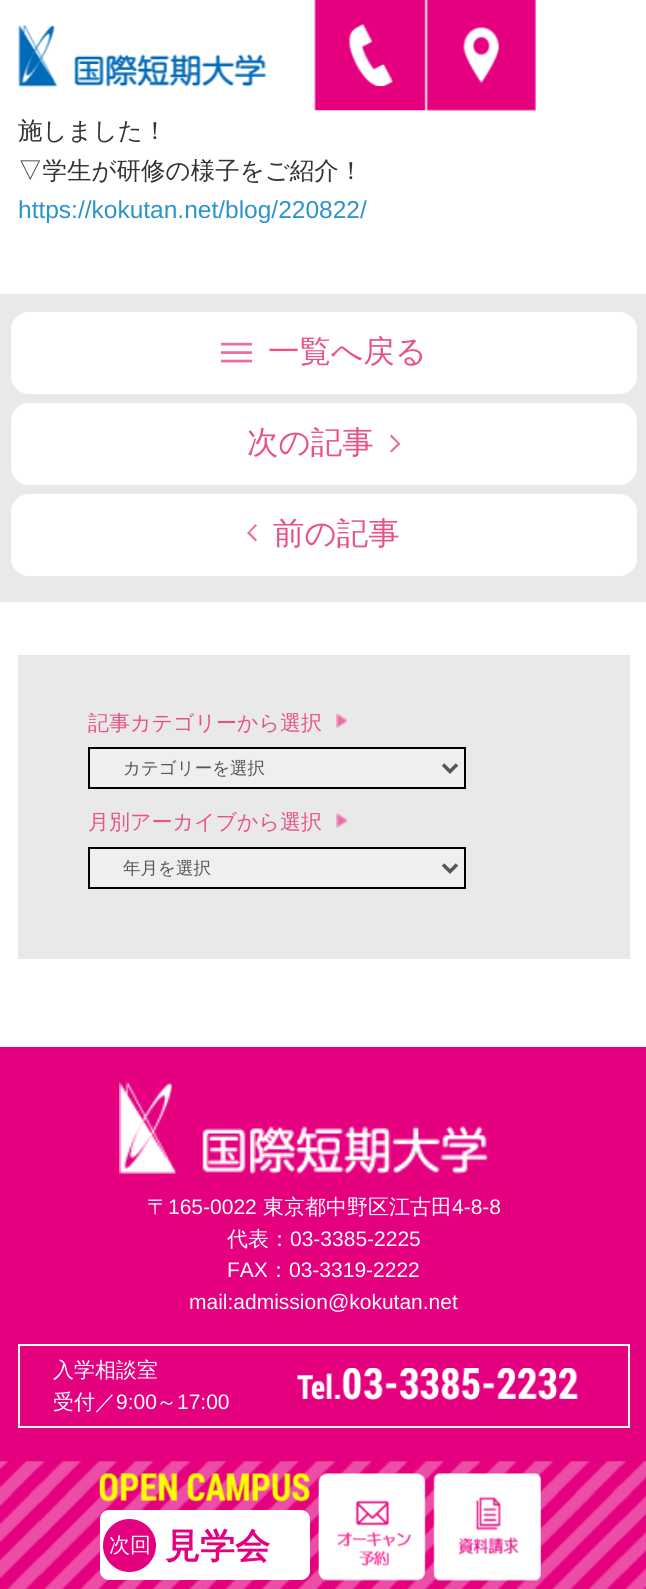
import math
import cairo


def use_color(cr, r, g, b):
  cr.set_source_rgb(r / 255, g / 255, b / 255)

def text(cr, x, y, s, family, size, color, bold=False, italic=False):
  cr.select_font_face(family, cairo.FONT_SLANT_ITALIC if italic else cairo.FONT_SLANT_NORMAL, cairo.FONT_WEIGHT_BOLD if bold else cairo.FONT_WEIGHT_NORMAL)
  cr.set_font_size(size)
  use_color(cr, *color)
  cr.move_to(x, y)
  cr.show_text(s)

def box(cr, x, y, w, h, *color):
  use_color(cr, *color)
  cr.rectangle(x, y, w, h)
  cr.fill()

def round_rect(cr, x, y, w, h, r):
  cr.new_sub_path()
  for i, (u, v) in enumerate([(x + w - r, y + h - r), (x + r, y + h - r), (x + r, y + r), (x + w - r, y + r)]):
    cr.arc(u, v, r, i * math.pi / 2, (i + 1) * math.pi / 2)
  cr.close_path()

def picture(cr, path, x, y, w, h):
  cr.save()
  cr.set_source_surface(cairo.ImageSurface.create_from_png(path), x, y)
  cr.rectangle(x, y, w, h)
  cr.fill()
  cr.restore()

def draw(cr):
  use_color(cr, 255, 255, 255)
  cr.paint()
  picture(cr, "img_01.png", 18, 24, 249, 63)
  picture(cr, "img_02.png", 314, 0, 112, 111)
  picture(cr, "img_03.png", 426, 0, 110, 111)
  box(cr, 0, 294, 646, 308, 233, 233, 233)
  use_color(cr, 255, 255, 255)
  round_rect(cr, 11, 312, 626, 82, 18)
  cr.fill()
  picture(cr, "img_04.png", 221, 342, 31, 21)
  round_rect(cr, 11, 403, 626, 82, 18)
  cr.fill()
  use_color(cr, 235, 109, 165)
  cr.new_path()
  cr.move_to(391.5, 452.5)
  cr.line_to(390, 451)
  cr.line_to(397.5, 443.5)
  cr.line_to(390, 436.5)
  cr.line_to(391.5, 434.5)
  cr.line_to(400.5, 444)
  cr.close_path()
  cr.fill()
  use_color(cr, 255, 255, 255)
  round_rect(cr, 11, 494, 626, 82, 18)
  cr.fill()
  use_color(cr, 235, 109, 165)
  cr.new_path()
  cr.move_to(247, 533)
  cr.line_to(255.5, 524)
  cr.line_to(257, 525.5)
  cr.line_to(250, 532.5)
  cr.line_to(257, 540)
  cr.line_to(255.5, 541.5)
  cr.close_path()
  cr.fill()
  box(cr, 18, 655, 612, 304, 233, 233, 233)
  picture(cr, "img_05.png", 336, 713, 12, 15)
  use_color(cr, 239, 239, 239)
  cr.rectangle(89, 748, 376, 40)
  cr.fill_preserve()
  use_color(cr, 0, 0, 0)
  cr.stroke()
  cr.new_path()
  cr.move_to(443, 764.5)
  cr.line_to(450, 771.5)
  cr.line_to(457, 764.5)
  use_color(cr, 86, 86, 86)
  cr.set_line_width(3.5)
  cr.stroke()
  picture(cr, "img_06.png", 336, 813, 12, 15)
  use_color(cr, 239, 239, 239)
  cr.rectangle(89, 848, 376, 40)
  cr.fill_preserve()
  use_color(cr, 0, 0, 0)
  cr.set_line_width(2)
  cr.stroke()
  cr.new_path()
  cr.move_to(443, 864.5)
  cr.line_to(450, 871.5)
  cr.line_to(457, 864.5)
  use_color(cr, 86, 86, 86)
  cr.set_line_width(3.5)
  cr.stroke()
  box(cr, 0, 1047, 646, 415, 228, 0, 127)
  picture(cr, "img_07.png", 119, 1081, 370, 93)
  cr.rectangle(19, 1345, 610, 82)
  use_color(cr, 255, 255, 255)
  cr.set_line_width(2)
  cr.stroke()
  picture(cr, "img_08.png", 297, 1368, 281, 32)
  picture(cr, "img_09.png", 0, 1461, 646, 128)
  picture(cr, "img_10.png", 99, 1473, 211, 29)
  round_rect(cr, 100, 1510, 210, 70, 9)
  cr.fill()
  use_color(cr, 228, 0, 127)
  cr.arc(129.5, 1545.5, 26.5, 0, 2 * math.pi)
  cr.fill()
  picture(cr, "img_11.png", 318, 1473, 108, 108)
  picture(cr, "img_12.png", 433, 1473, 108, 108)
  text(cr, 18, 139, "施しました！", "WenQuanYi Zen Hei Medium", 24.5, (51, 51, 51))
  text(cr, 18, 179, "▽学生が研修の様子をご紹介！", "WenQuanYi Zen Hei Medium", 24.5, (51, 51, 51))
  text(cr, 18, 218, "https://kokutan.net/blog/220822/", "Liberation Sans", 24.5, (44, 147, 205))
  text(cr, 268, 362, "一覧へ戻る", "WenQuanYi Zen Hei Medium", 31.5, (233, 83, 131))
  text(cr, 247, 453, "次の記事", "WenQuanYi Zen Hei Medium", 31.5, (233, 83, 131))
  text(cr, 273, 544, "前の記事", "WenQuanYi Zen Hei Medium", 31.5, (233, 83, 131))
  text(cr, 88, 730, "記事カテゴリーから選択", "WenQuanYi Zen Hei Medium", 21, (233, 83, 131))
  text(cr, 123, 774, "カテゴリーを選択", "WenQuanYi Zen Hei Medium", 17.5, (86, 86, 86))
  text(cr, 88, 829, "月別アーカイブから選択", "WenQuanYi Zen Hei Medium", 21, (233, 83, 131))
  text(cr, 123, 874, "年月を選択", "WenQuanYi Zen Hei Medium", 17.5, (86, 86, 86))
  text(cr, 147, 1214, "〒", "WenQuanYi Zen Hei Medium", 21, (255, 255, 255))
  text(cr, 168, 1214, "165-0022", "Liberation Sans", 21, (255, 255, 255))
  text(cr, 263, 1214, "東京都中野区江古田", "WenQuanYi Zen Hei Medium", 21, (255, 255, 255))
  text(cr, 452, 1214, "4-8-8", "Liberation Sans", 21, (255, 255, 255))
  text(cr, 227, 1246, "代表：", "WenQuanYi Zen Hei Medium", 21, (255, 255, 255))
  text(cr, 290, 1246, "03-3385-2225", "Liberation Sans", 21, (255, 255, 255))
  text(cr, 227, 1277, "FAX", "Liberation Sans", 21, (255, 255, 255))
  text(cr, 268, 1277, "：", "WenQuanYi Zen Hei Medium", 21, (255, 255, 255))
  text(cr, 289, 1277, "03-3319-2222", "Liberation Sans", 21, (255, 255, 255))
  text(cr, 189, 1309, "mail:admission@kokutan.net", "Liberation Sans", 21, (255, 255, 255))
  text(cr, 53, 1377, "入学相談室", "WenQuanYi Zen Hei Medium", 21, (255, 255, 255))
  text(cr, 53, 1409, "受付／", "WenQuanYi Zen Hei Medium", 21, (255, 255, 255))
  text(cr, 116, 1409, "9:00", "Liberation Sans", 21, (255, 255, 255))
  text(cr, 156, 1409, "～", "WenQuanYi Zen Hei Medium", 21, (255, 255, 255))
  text(cr, 177, 1409, "17:00", "Liberation Sans", 21, (255, 255, 255))
  text(cr, 109, 1552, "次回", "WenQuanYi Zen Hei Medium", 21, (255, 255, 255))
  text(cr, 165, 1558, "見学会", "WenQuanYi Zen Hei", 35, (228, 0, 127), bold=True)


surface = cairo.ImageSurface(cairo.FORMAT_RGB24, 646, 1589)
cr = cairo.Context(surface)
options = cairo.FontOptions()
options.set_hint_metrics(cairo.HINT_METRICS_OFF)
options.set_hint_style(cairo.HINT_STYLE_NONE)
cr.set_font_options(options)
cr.set_miter_limit(4)
draw(cr)
surface.write_to_png("out.png")
